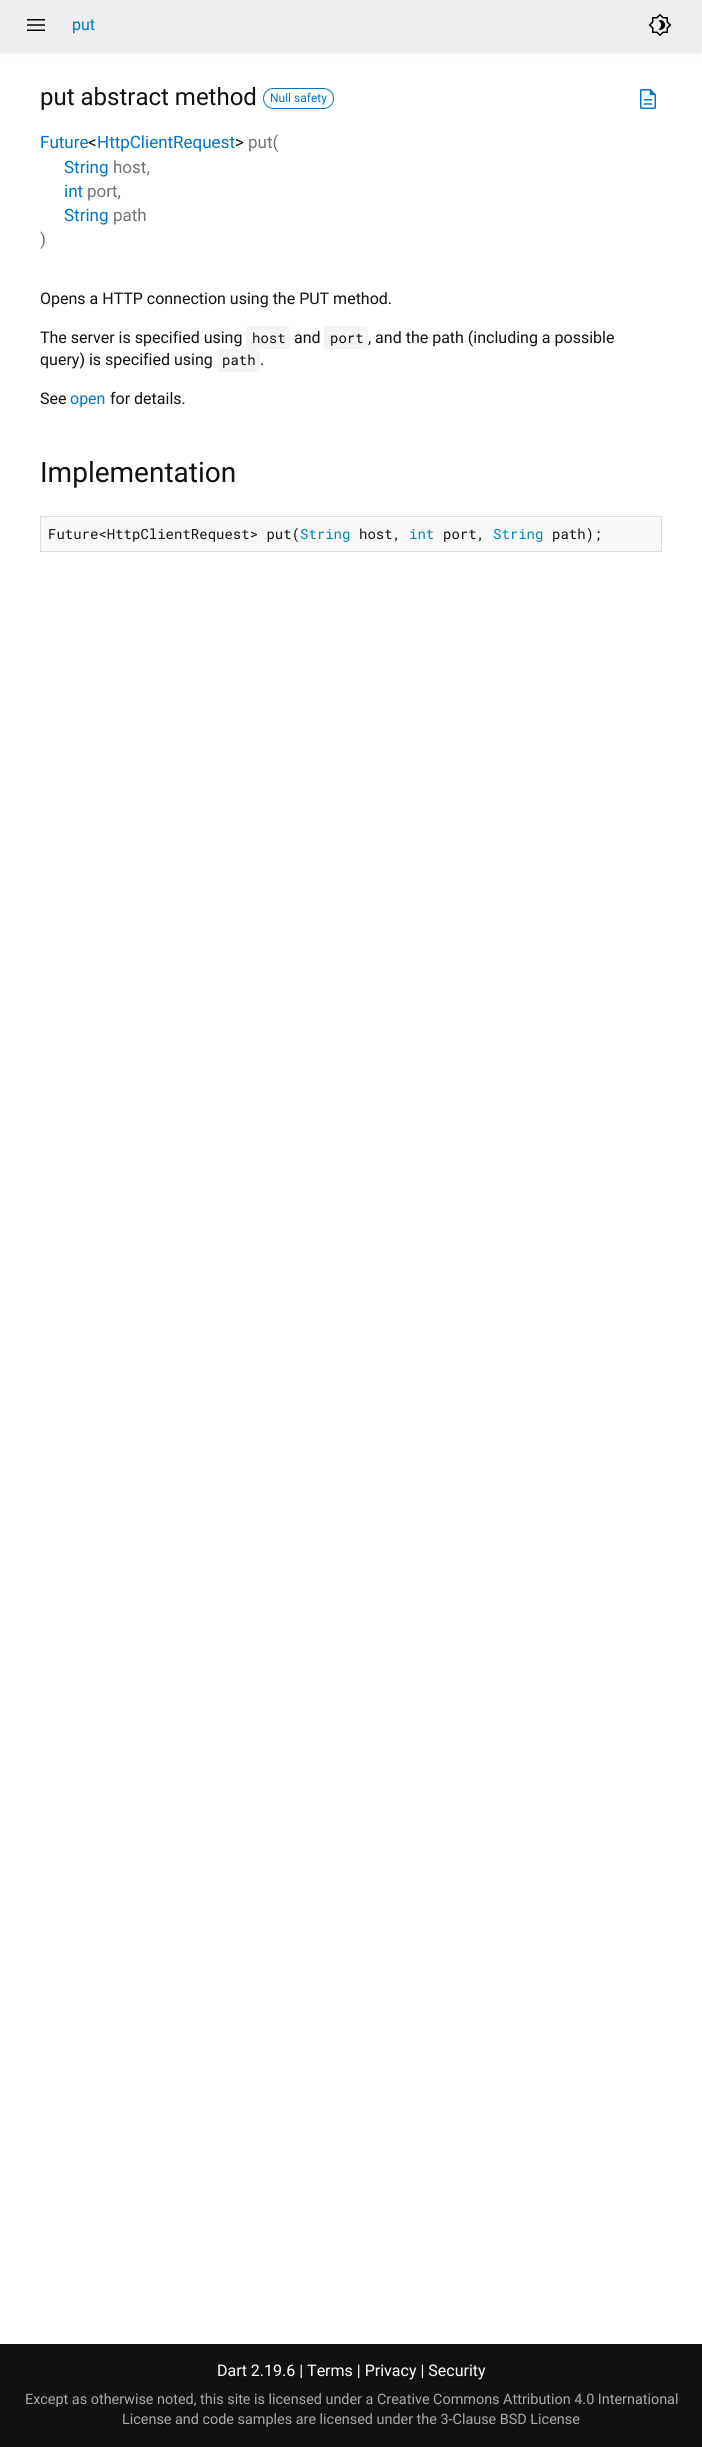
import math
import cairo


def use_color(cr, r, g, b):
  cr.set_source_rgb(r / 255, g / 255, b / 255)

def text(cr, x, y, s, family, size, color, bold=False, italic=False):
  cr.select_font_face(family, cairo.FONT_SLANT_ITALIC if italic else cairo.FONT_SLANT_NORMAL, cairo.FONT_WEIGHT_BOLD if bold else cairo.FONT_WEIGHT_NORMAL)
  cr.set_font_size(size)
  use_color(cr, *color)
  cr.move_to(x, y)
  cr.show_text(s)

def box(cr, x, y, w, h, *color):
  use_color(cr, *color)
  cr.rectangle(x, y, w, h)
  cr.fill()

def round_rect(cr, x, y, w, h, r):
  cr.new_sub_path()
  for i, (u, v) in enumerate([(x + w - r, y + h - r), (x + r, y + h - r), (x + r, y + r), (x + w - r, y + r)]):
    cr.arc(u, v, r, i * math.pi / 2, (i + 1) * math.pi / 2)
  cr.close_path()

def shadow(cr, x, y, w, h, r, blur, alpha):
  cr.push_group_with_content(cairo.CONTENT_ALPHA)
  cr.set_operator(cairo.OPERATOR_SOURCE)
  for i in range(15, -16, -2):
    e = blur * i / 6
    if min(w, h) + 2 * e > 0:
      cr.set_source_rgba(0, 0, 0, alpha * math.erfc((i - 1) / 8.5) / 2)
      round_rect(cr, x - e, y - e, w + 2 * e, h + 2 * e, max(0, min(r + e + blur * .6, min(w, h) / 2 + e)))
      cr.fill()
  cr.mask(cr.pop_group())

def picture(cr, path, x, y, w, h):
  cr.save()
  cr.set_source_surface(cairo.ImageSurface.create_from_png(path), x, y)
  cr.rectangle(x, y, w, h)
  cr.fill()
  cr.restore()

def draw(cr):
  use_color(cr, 255, 255, 255)
  cr.paint()
  use_color(cr, 0, 0, 0)
  shadow(cr, 0, 3, 702, 50, 0, 2.5, 0.1)
  box(cr, 0, 0, 702, 50, 238, 238, 238)
  picture(cr, "img_01.png", 27, 19, 18, 12)
  picture(cr, "img_02.png", 648, 13, 24, 24)
  round_rect(cr, 263.5, 88.5, 70, 20, 10)
  use_color(cr, 1, 117, 194)
  cr.set_line_width(1)
  cr.stroke()
  picture(cr, "img_03.png", 640, 89, 16, 20)
  use_color(cr, 244, 244, 244)
  round_rect(cr, 246, 326, 44, 23, 3)
  cr.fill()
  round_rect(cr, 324, 326, 44, 23, 3)
  cr.fill()
  round_rect(cr, 217, 349, 43, 23, 3)
  cr.fill()
  use_color(cr, 238, 238, 238)
  cr.rectangle(40.5, 516.5, 621, 35)
  cr.fill_preserve()
  use_color(cr, 221, 221, 221)
  cr.stroke()
  use_color(cr, 248, 248, 248)
  round_rect(cr, 41, 517, 620, 34, 3)
  cr.fill()
  box(cr, 0, 2344, 702, 103, 17, 17, 17)
  text(cr, 72, 30, "put", "Roboto", 16, (1, 117, 194))
  text(cr, 40, 105, "put abstract method", "Roboto", 24, (17, 17, 17))
  text(cr, 270, 102, "Null safety", "Roboto", 12, (1, 117, 194))
  text(cr, 40, 148, "Future", "Roboto", 17, (1, 117, 194))
  text(cr, 88, 148, "<", "Roboto", 17, (17, 17, 17))
  text(cr, 97, 148, "HttpClientRequest", "Roboto", 17, (1, 117, 194))
  text(cr, 235, 148, ">", "Roboto", 17, (17, 17, 17))
  text(cr, 248, 148, "put(", "Roboto", 17, (114, 114, 114))
  text(cr, 64, 173, "String", "Roboto", 17, (1, 117, 194))
  text(cr, 113, 173, "host,", "Roboto", 17, (114, 114, 114))
  text(cr, 64, 197, "int", "Roboto", 17, (1, 117, 194))
  text(cr, 87, 197, "port,", "Roboto", 17, (114, 114, 114))
  text(cr, 64, 221, "String", "Roboto", 17, (1, 117, 194))
  text(cr, 113, 221, "path", "Roboto", 17, (114, 114, 114))
  text(cr, 40, 245, ")", "Roboto", 17, (114, 114, 114))
  text(cr, 40, 304, "Opens a HTTP connection using the PUT method.", "Roboto", 16, (17, 17, 17))
  text(cr, 40, 343, "The server is specified using", "Roboto", 16, (17, 17, 17))
  text(cr, 252, 343, "host", "Roboto Mono", 14, (17, 17, 17))
  text(cr, 294, 343, "and", "Roboto", 16, (17, 17, 17))
  text(cr, 330, 343, "port", "Roboto Mono", 14, (17, 17, 17))
  text(cr, 368, 343, ", and the path (including a possible", "Roboto", 16, (17, 17, 17))
  text(cr, 40, 365, "query) is specified using", "Roboto", 16, (17, 17, 17))
  text(cr, 222, 365, "path", "Roboto Mono", 14, (17, 17, 17))
  text(cr, 260, 365, ".", "Roboto", 16, (17, 17, 17))
  text(cr, 40, 404, "See", "Roboto", 16, (17, 17, 17))
  text(cr, 70, 404, "open", "Roboto", 16, (1, 117, 194))
  text(cr, 110, 404, "for details.", "Roboto", 16, (17, 17, 17))
  text(cr, 40, 482, "Implementation", "Roboto", 28, (17, 17, 17))
  text(cr, 48, 539, "Future<HttpClientRequest> put(", "Roboto Mono", 14, (17, 17, 17))
  text(cr, 300, 539, "String", "Roboto Mono", 14, (0, 134, 179))
  text(cr, 359, 539, "host,", "Roboto Mono", 14, (17, 17, 17))
  text(cr, 409, 539, "int", "Roboto Mono", 14, (0, 134, 179))
  text(cr, 443, 539, "port,", "Roboto Mono", 14, (17, 17, 17))
  text(cr, 493, 539, "String", "Roboto Mono", 14, (0, 134, 179))
  text(cr, 552, 539, "path);", "Roboto Mono", 14, (17, 17, 17))
  text(cr, 217, 2376, "Dart 2.19.6 | Terms | Privacy | Security", "Roboto", 16, (255, 255, 255))
  text(cr, 25, 2404, "Except as otherwise noted, this site is licensed under a Creative Commons Attribution 4.0 International", "Roboto", 14.4, (169, 169, 169))
  text(cr, 122, 2424, "License and code samples are licensed under the 3-Clause BSD License", "Roboto", 14.4, (169, 169, 169))


surface = cairo.ImageSurface(cairo.FORMAT_RGB24, 702, 2447)
cr = cairo.Context(surface)
options = cairo.FontOptions()
options.set_hint_metrics(cairo.HINT_METRICS_OFF)
options.set_hint_style(cairo.HINT_STYLE_NONE)
cr.set_font_options(options)
cr.set_miter_limit(4)
draw(cr)
surface.write_to_png("out.png")
